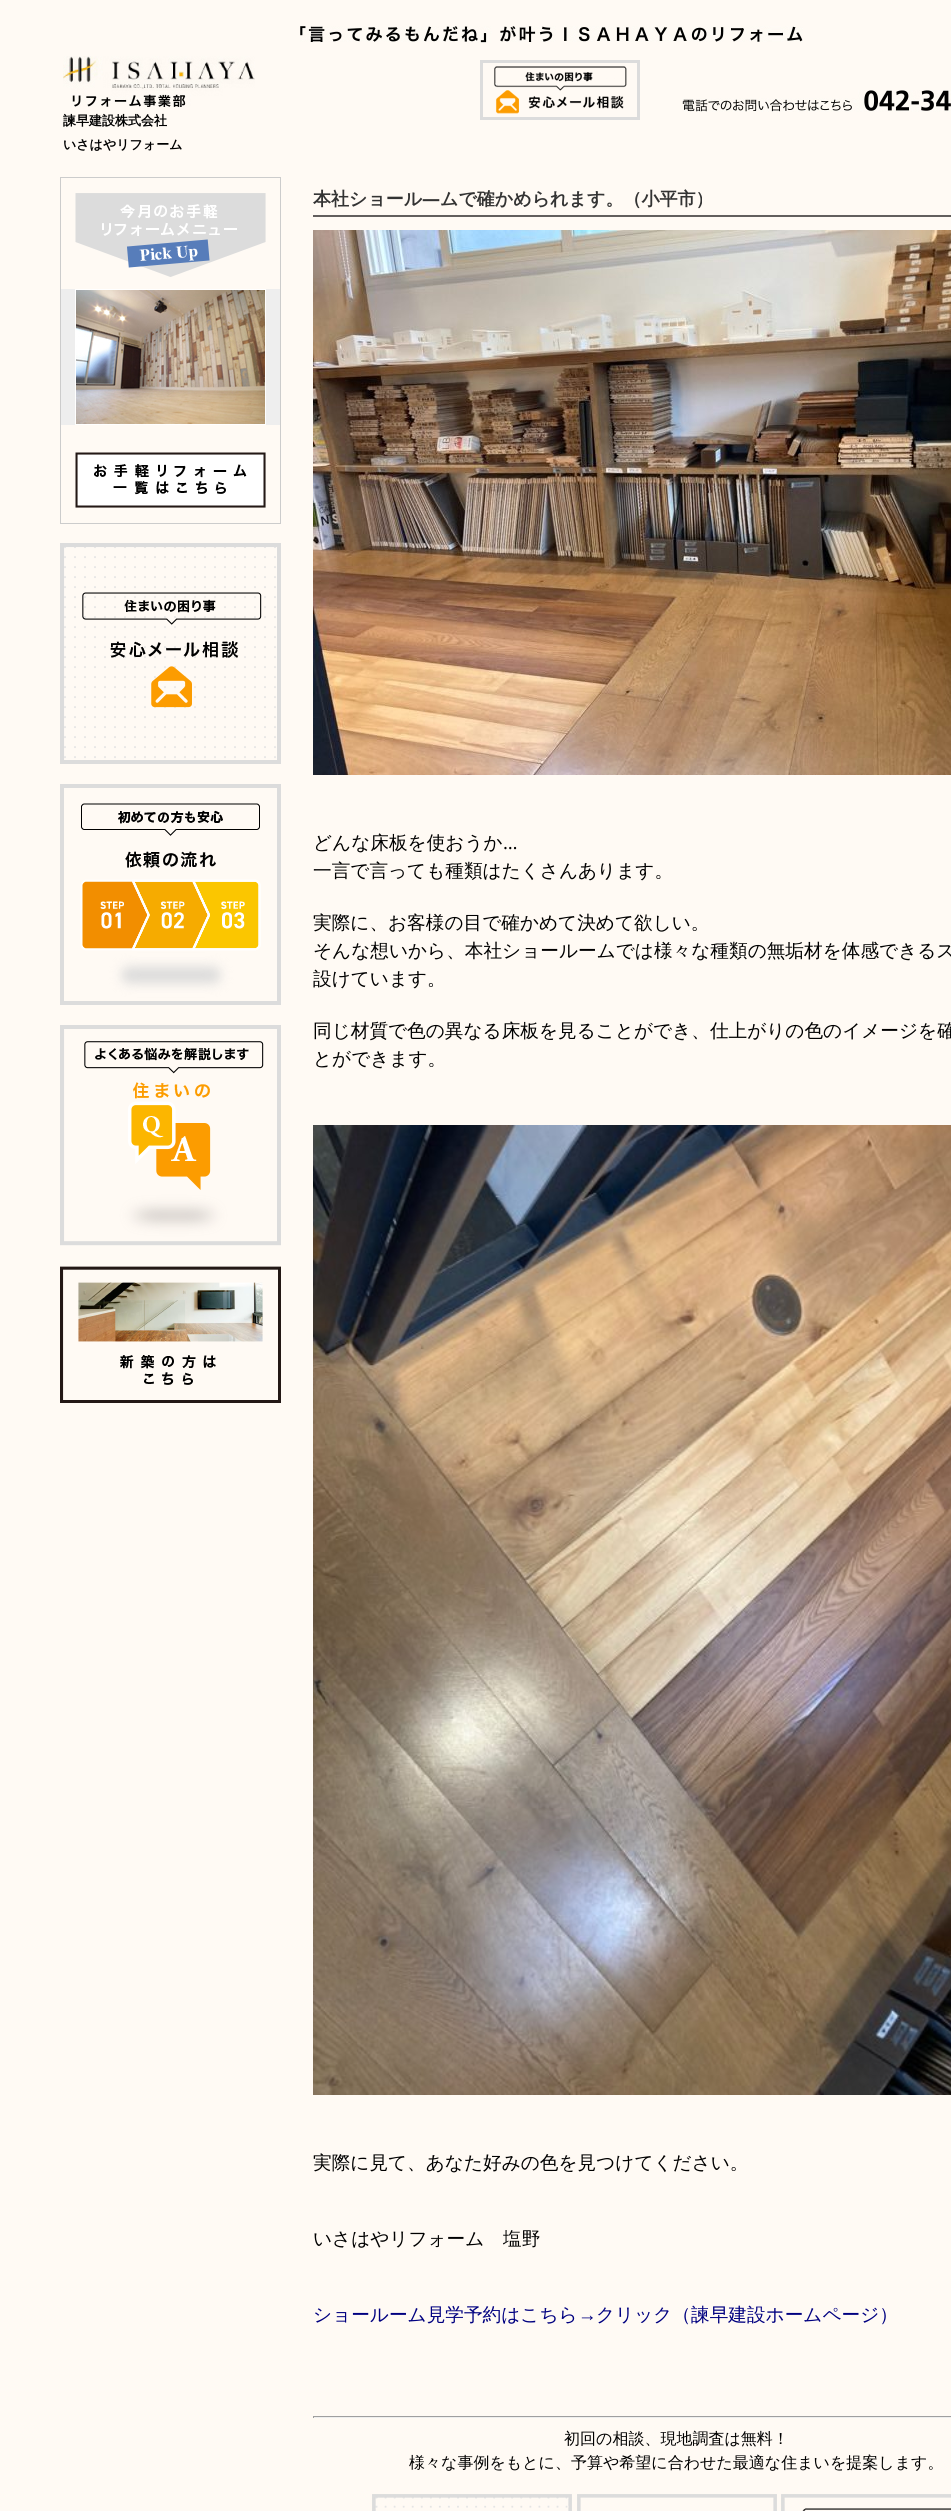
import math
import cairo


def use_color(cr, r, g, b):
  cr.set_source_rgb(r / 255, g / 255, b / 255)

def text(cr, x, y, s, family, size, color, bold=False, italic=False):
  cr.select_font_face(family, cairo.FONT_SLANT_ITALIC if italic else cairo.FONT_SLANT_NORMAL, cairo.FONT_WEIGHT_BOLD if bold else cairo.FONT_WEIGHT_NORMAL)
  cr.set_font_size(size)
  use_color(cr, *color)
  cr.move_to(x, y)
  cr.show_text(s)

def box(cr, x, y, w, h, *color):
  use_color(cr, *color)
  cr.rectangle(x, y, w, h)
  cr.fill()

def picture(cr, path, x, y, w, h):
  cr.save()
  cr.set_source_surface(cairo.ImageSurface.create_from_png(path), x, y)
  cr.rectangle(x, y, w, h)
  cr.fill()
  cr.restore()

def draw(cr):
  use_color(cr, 255, 250, 244)
  cr.paint()
  picture(cr, "img_01.png", 300, 26, 503, 17)
  picture(cr, "img_02.png", 480, 60, 160, 60)
  picture(cr, "img_03.png", 682, 90, 269, 22)
  picture(cr, "img_04.png", 63, 56, 192, 51)
  cr.rectangle(60.5, 177.5, 220, 346)
  use_color(cr, 204, 204, 204)
  cr.set_line_width(1)
  cr.stroke()
  picture(cr, "img_05.png", 75, 193, 191, 84)
  box(cr, 61, 289, 219, 136, 238, 238, 238)
  picture(cr, "img_06.png", 75, 289, 191, 136)
  picture(cr, "img_07.png", 75, 452, 191, 56)
  picture(cr, "img_08.png", 60, 543, 221, 221)
  picture(cr, "img_09.png", 60, 784, 221, 221)
  picture(cr, "img_10.png", 60, 1025, 221, 221)
  picture(cr, "img_11.png", 60, 1266, 221, 137)
  box(cr, 313, 215, 638, 2, 98, 94, 93)
  picture(cr, "img_12.png", 313, 230, 638, 545)
  picture(cr, "img_13.png", 313, 1125, 638, 970)
  box(cr, 313, 2416, 638, 1, 159, 159, 159)
  box(cr, 313, 2417, 638, 1, 238, 238, 238)
  box(cr, 313, 2416, 1, 2, 159, 159, 159)
  picture(cr, "img_14.png", 372, 2494, 200, 17)
  picture(cr, "img_15.png", 577, 2494, 200, 17)
  picture(cr, "img_16.png", 781, 2494, 170, 17)
  text(cr, 63, 125, "諫早建設株式会社", "WenQuanYi Zen Hei", 13, (0, 0, 0), bold=True)
  text(cr, 63, 149, "いさはやリフォーム", "WenQuanYi Zen Hei", 13, (0, 0, 0), bold=True)
  text(cr, 313, 205, "本社ショール", "WenQuanYi Zen Hei", 18, (51, 51, 51), bold=True)
  text(cr, 422, 205, "―", "Open Sans", 18, (51, 51, 51), bold=True)
  text(cr, 440, 205, "ムで確かめられます。（小平市）", "WenQuanYi Zen Hei", 18, (51, 51, 51), bold=True)
  text(cr, 313, 849, "どんな床板を使おうか", "WenQuanYi Zen Hei Medium", 18.65, (0, 0, 0))
  text(cr, 503, 849, "…", "Open Sans", 18.65, (0, 0, 0))
  text(cr, 313, 877, "一言で言っても種類はたくさんあります。", "WenQuanYi Zen Hei Medium", 18.65, (0, 0, 0))
  text(cr, 313, 929, "実際に、お客様の目で確かめて決めて欲しい。", "WenQuanYi Zen Hei Medium", 18.65, (0, 0, 0))
  text(cr, 313, 957, "そんな想いから、本社ショールームでは様々な種類の無垢材を体感できるス", "WenQuanYi Zen Hei Medium", 18.65, (0, 0, 0))
  text(cr, 313, 985, "設けています。", "WenQuanYi Zen Hei Medium", 18.65, (0, 0, 0))
  text(cr, 313, 1037, "同じ材質で色の異なる床板を見ることができ、仕上がりの色のイメージを確", "WenQuanYi Zen Hei Medium", 18.65, (0, 0, 0))
  text(cr, 313, 1065, "とができます。", "WenQuanYi Zen Hei Medium", 18.65, (0, 0, 0))
  text(cr, 313, 2169, "実際に見て、あなた好みの色を見つけてください。", "WenQuanYi Zen Hei Medium", 18.65, (0, 0, 0))
  text(cr, 313, 2245, "いさはやリフォーム　塩野", "WenQuanYi Zen Hei Medium", 18.65, (0, 0, 0))
  text(cr, 313, 2321, "ショールーム見学予約はこちら", "WenQuanYi Zen Hei Medium", 18.65, (0, 0, 128))
  text(cr, 578, 2321, "→", "Liberation Sans", 18.65, (0, 0, 128))
  text(cr, 596, 2321, "クリック（諫早建設ホームページ）", "WenQuanYi Zen Hei Medium", 18.65, (0, 0, 128))
  text(cr, 564, 2444, "初回の相談、現地調査は無料！", "WenQuanYi Zen Hei Medium", 16, (0, 0, 0))
  text(cr, 409, 2468, "様々な事例をもとに、予算や希望に合わせた最適な住まいを提案します。", "WenQuanYi Zen Hei Medium", 16, (0, 0, 0))


surface = cairo.ImageSurface(cairo.FORMAT_RGB24, 951, 2511)
cr = cairo.Context(surface)
options = cairo.FontOptions()
options.set_hint_metrics(cairo.HINT_METRICS_OFF)
options.set_hint_style(cairo.HINT_STYLE_NONE)
cr.set_font_options(options)
cr.set_miter_limit(4)
draw(cr)
surface.write_to_png("out.png")
